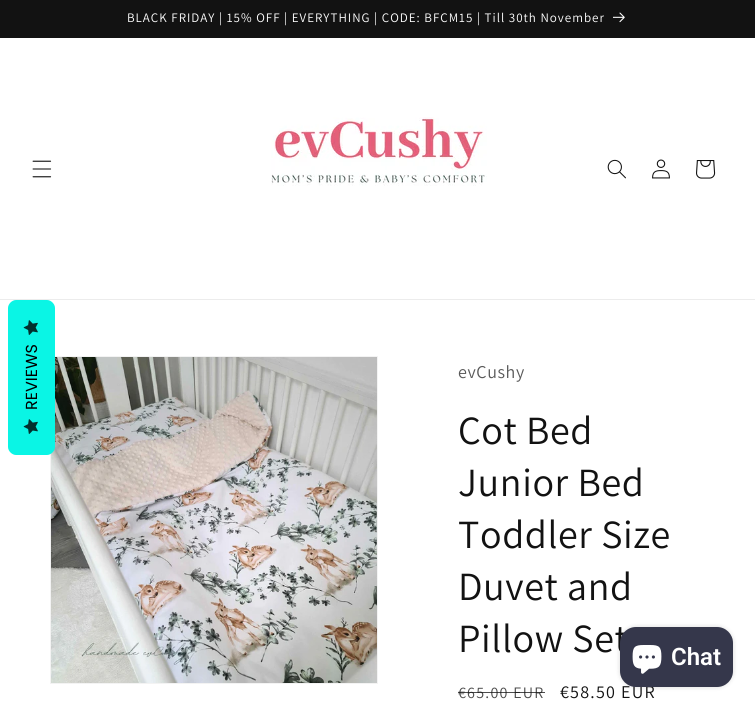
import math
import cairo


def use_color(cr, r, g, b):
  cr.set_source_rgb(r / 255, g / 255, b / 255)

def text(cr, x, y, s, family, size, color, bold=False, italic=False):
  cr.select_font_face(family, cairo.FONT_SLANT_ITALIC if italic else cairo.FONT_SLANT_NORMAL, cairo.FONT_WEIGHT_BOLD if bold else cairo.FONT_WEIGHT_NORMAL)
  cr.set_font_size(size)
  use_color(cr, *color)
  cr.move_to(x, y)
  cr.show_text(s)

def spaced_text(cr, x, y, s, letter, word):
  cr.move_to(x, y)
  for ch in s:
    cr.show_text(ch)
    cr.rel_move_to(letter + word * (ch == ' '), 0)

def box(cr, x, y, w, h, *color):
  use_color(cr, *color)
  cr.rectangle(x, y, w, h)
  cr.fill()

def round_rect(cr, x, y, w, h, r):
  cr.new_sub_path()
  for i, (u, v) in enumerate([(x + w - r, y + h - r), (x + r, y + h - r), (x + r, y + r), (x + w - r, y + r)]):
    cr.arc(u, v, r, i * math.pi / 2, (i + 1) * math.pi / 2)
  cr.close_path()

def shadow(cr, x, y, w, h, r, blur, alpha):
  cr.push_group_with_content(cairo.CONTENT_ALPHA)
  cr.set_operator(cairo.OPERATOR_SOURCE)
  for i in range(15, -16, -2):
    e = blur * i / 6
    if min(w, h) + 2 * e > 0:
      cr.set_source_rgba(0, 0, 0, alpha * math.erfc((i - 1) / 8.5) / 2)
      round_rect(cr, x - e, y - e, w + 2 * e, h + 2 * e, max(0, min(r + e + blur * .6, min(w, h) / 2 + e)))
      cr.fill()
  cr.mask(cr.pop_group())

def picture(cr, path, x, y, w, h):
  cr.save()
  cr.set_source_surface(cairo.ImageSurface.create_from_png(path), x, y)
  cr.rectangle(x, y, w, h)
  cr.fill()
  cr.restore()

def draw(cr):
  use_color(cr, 255, 255, 255)
  cr.paint()
  box(cr, 0, 0, 755, 38, 18, 18, 18)
  picture(cr, "img_01.png", 613, 12, 12, 11)
  box(cr, 0, 299, 755, 1, 236, 236, 236)
  picture(cr, "img_02.png", 32, 160, 20, 18)
  picture(cr, "img_03.png", 271, 117, 216, 69)
  picture(cr, "img_04.png", 607, 159, 19, 20)
  picture(cr, "img_05.png", 652, 159, 18, 20)
  picture(cr, "img_06.png", 696, 160, 20, 19)
  cr.rectangle(50.5, 356.5, 327, 327)
  use_color(cr, 243, 243, 243)
  cr.set_line_width(1)
  cr.stroke()
  picture(cr, "img_08.png", 51, 357, 326, 326)
  use_color(cr, 10, 245, 229)
  cr.new_path()
  cr.move_to(8, 447)
  cr.line_to(8, 308)
  cr.curve_to(8, 304, 12, 300, 16, 300)
  cr.line_to(47, 300)
  cr.curve_to(51, 300, 55, 304, 55, 308)
  cr.line_to(55, 447)
  cr.curve_to(55, 451, 51, 455, 47, 455)
  cr.line_to(16, 455)
  cr.curve_to(12, 455, 8, 451, 8, 447)
  cr.close_path()
  cr.fill()
  picture(cr, "img_07.png", 23, 320, 15, 15)
  picture(cr, "img_07.png", 23, 419, 15, 15)
  use_color(cr, 0, 0, 0)
  shadow(cr, 620, 627, 113, 60, 16, 2.5, 0.15)
  cr.select_font_face("Assistant")
  cr.set_font_size(13)
  use_color(cr, 255, 255, 255)
  spaced_text(cr, 127, 22, "BLACK FRIDAY | 15% OFF | EVERYTHING | CODE: BFCM15 | Till 30th November", 1, 0)
  cr.save()
  cr.translate(37, 410)
  cr.rotate(-90 * math.pi / 180)
  text(cr, 0, 0, "REVIEWS", "Poppins", 16, (0, 0, 0))
  cr.restore()
  cr.select_font_face("Assistant")
  cr.set_font_size(18)
  use_color(cr, 89, 89, 89)
  spaced_text(cr, 458, 378, "evCushy", 0.6, 0)
  cr.set_font_size(40)
  use_color(cr, 18, 18, 18)
  spaced_text(cr, 458, 444, "Cot Bed", 0.6, 0)
  spaced_text(cr, 458, 496, "Junior Bed", 0.6, 0)
  spaced_text(cr, 458, 548, "Toddler Size", 0.6, 0)
  spaced_text(cr, 458, 600, "Duvet and", 0.6, 0)
  spaced_text(cr, 458, 652, "Pillow Set", 0.6, 0)
  cr.set_font_size(16)
  use_color(cr, 77, 77, 77)
  spaced_text(cr, 458, 698, "€65.00 EUR", 1.25, 0)
  cr.set_source_rgba(0.071, 0.071, 0.071, 0.75)
  cr.rectangle(458, 692, 87, 1)
  cr.fill()
  cr.set_font_size(18)
  use_color(cr, 18, 18, 18)
  spaced_text(cr, 560, 698, "€58.50 EUR", 1.25, 0)
  use_color(cr, 53, 55, 75)
  round_rect(cr, 620, 627, 113, 60, 16)
  cr.fill()
  picture(cr, "img_09.png", 632, 645, 30, 29)
  text(cr, 671, 665, "Chat", "Roboto SemiBold", 24, (255, 255, 255))


surface = cairo.ImageSurface(cairo.FORMAT_RGB24, 755, 708)
cr = cairo.Context(surface)
options = cairo.FontOptions()
options.set_hint_metrics(cairo.HINT_METRICS_OFF)
options.set_hint_style(cairo.HINT_STYLE_NONE)
cr.set_font_options(options)
cr.set_miter_limit(4)
draw(cr)
surface.write_to_png("out.png")
